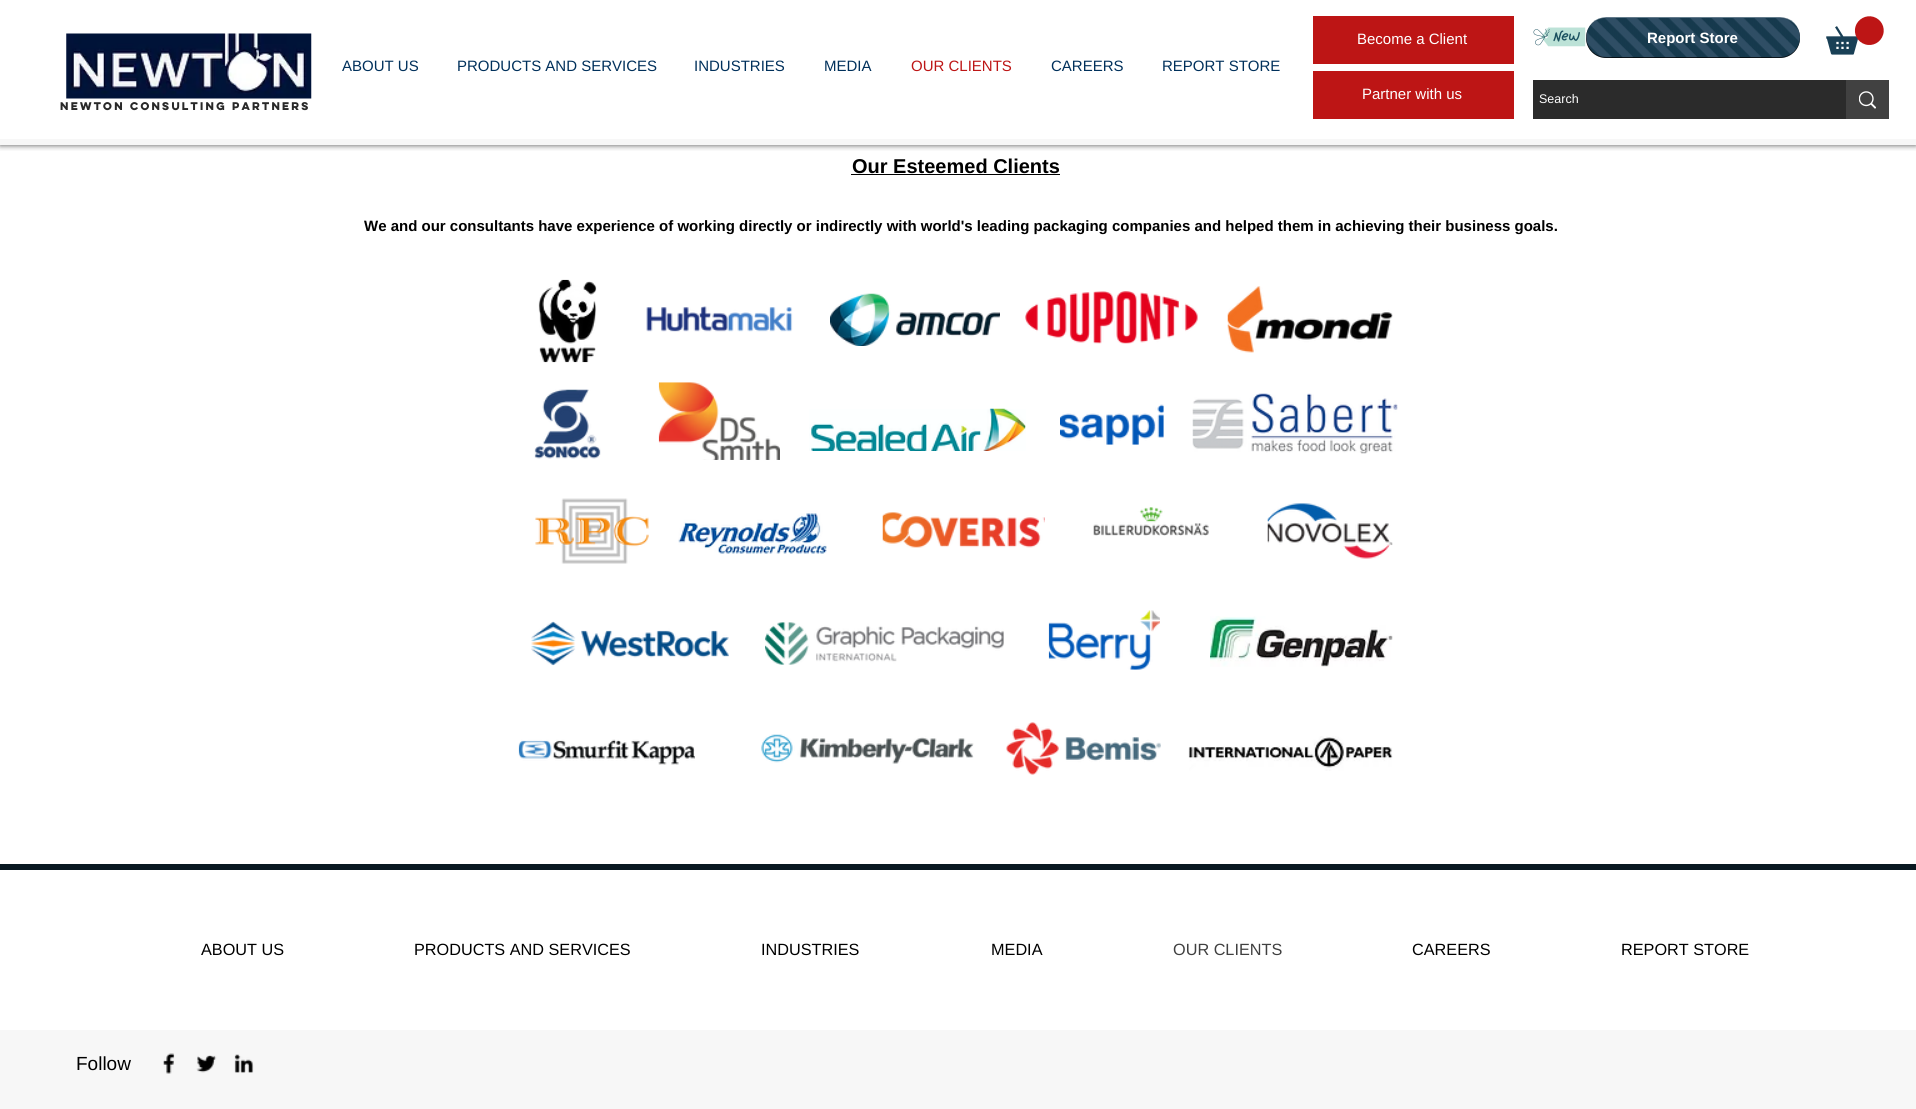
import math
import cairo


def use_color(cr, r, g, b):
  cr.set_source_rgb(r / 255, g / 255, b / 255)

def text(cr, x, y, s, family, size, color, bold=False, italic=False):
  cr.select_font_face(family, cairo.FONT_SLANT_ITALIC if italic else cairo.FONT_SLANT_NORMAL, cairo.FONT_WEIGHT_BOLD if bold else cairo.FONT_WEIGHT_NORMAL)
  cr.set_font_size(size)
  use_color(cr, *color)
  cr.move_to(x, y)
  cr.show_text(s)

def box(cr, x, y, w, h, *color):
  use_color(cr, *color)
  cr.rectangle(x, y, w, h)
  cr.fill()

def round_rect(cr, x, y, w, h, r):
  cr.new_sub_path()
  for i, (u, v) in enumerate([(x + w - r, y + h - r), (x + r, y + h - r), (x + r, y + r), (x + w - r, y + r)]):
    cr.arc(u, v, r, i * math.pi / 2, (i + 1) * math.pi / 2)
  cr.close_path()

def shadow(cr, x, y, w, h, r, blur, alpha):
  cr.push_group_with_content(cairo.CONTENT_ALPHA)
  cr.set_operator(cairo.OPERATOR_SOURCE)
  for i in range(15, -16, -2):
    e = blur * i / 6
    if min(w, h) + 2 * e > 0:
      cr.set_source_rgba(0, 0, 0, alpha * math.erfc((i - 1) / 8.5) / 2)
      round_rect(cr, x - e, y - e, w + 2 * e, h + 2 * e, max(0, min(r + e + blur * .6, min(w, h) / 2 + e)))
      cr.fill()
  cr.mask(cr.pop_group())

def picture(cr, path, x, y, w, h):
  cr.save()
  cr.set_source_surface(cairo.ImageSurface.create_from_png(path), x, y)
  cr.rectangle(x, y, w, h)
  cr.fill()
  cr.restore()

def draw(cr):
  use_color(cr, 255, 255, 255)
  cr.paint()
  cr.save()
  cr.rectangle(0, 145, 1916, 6)
  cr.clip()
  use_color(cr, 0, 0, 0)
  shadow(cr, 0, 0, 1916, 145, 0, 3, 0.7)
  cr.restore()
  picture(cr, "img_01.png", 66, 33, 246, 66)
  box(cr, 1313, 16, 201, 48, 189, 21, 21)
  picture(cr, "img_02.png", 1533, 27, 53, 20)
  use_color(cr, 1, 3, 4)
  round_rect(cr, 1586, 18, 214, 40, 20)
  cr.fill()
  picture(cr, "img_03.png", 1586, 17, 214, 41)
  picture(cr, "img_04.png", 1826, 16, 58, 39)
  box(cr, 1313, 71, 201, 48, 189, 21, 21)
  box(cr, 1533, 80, 313, 39, 43, 43, 43)
  box(cr, 1846, 80, 43, 39, 65, 65, 65)
  picture(cr, "img_05.png", 1859, 91, 17, 18)
  box(cr, 0, 139, 1916, 6, 247, 247, 247)
  box(cr, 851, 174, 209, 1, 0, 0, 0)
  picture(cr, "img_06.png", 538, 279, 59, 84)
  picture(cr, "img_07.png", 646, 306, 147, 26)
  picture(cr, "img_08.png", 830, 293, 170, 53)
  picture(cr, "img_09.png", 1025, 291, 173, 53)
  picture(cr, "img_10.png", 1227, 286, 166, 67)
  picture(cr, "img_11.png", 534, 389, 67, 70)
  picture(cr, "img_12.png", 658, 382, 122, 78)
  picture(cr, "img_13.png", 809, 408, 217, 43)
  picture(cr, "img_14.png", 1060, 404, 104, 41)
  picture(cr, "img_15.png", 1192, 393, 206, 61)
  picture(cr, "img_16.png", 535, 498, 114, 66)
  picture(cr, "img_17.png", 678, 459, 149, 95)
  picture(cr, "img_18.png", 882, 512, 163, 36)
  picture(cr, "img_19.png", 1093, 507, 116, 29)
  picture(cr, "img_20.png", 1267, 503, 126, 56)
  picture(cr, "img_21.png", 531, 621, 198, 45)
  picture(cr, "img_22.png", 765, 622, 239, 43)
  picture(cr, "img_23.png", 1048, 610, 112, 60)
  picture(cr, "img_24.png", 1210, 616, 183, 51)
  picture(cr, "img_25.png", 518, 739, 177, 26)
  picture(cr, "img_26.png", 761, 734, 213, 30)
  picture(cr, "img_27.png", 1006, 722, 155, 53)
  picture(cr, "img_28.png", 1188, 736, 205, 35)
  box(cr, 0, 864, 1916, 6, 9, 24, 33)
  box(cr, 0, 1030, 1916, 79, 247, 247, 247)
  picture(cr, "img_29.png", 163, 1053, 12, 21)
  picture(cr, "img_30.png", 196, 1055, 21, 18)
  picture(cr, "img_31.png", 234, 1054, 20, 19)
  text(cr, 1357, 44, "Become a Client", "Liberation Sans", 15, (255, 255, 255))
  text(cr, 1647, 43, "Report Store", "Liberation Sans", 15, (255, 255, 255), bold=True)
  text(cr, 342, 71, "ABOUT US", "Liberation Sans", 15, (0, 48, 91))
  text(cr, 457, 71, "PRODUCTS AND SERVICES", "Liberation Sans", 15, (0, 48, 91))
  text(cr, 694, 71, "INDUSTRIES", "Liberation Sans", 15, (0, 48, 91))
  text(cr, 824, 71, "MEDIA", "Liberation Sans", 15, (0, 48, 91))
  text(cr, 911, 71, "OUR CLIENTS", "Liberation Sans", 15, (189, 21, 21))
  text(cr, 1051, 71, "CAREERS", "Liberation Sans", 15, (0, 48, 91))
  text(cr, 1162, 71, "REPORT STORE", "Liberation Sans", 15, (0, 48, 91))
  text(cr, 1362, 99, "Partner with us", "Liberation Sans", 15, (255, 255, 255))
  text(cr, 1539, 103, "Search", "Liberation Sans", 12.5, (255, 255, 255))
  text(cr, 60, 110, "NEWTON CONSULTING PARTNERS", "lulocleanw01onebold", 10, (41, 41, 41), bold=True)
  text(cr, 852, 173, "Our Esteemed Clients", "Liberation Sans", 20, (0, 0, 0), bold=True)
  text(cr, 364, 231, "We and our consultants have experience of working directly or indirectly with world's leading packaging companies and helped them in achieving their business goals.", "Liberation Sans", 15, (0, 0, 0), bold=True)
  text(cr, 201, 955, "ABOUT US", "Liberation Sans", 16.25, (0, 0, 0))
  text(cr, 414, 955, "PRODUCTS AND SERVICES", "Liberation Sans", 16.25, (0, 0, 0))
  text(cr, 761, 955, "INDUSTRIES", "Liberation Sans", 16.25, (0, 0, 0))
  text(cr, 991, 955, "MEDIA", "Liberation Sans", 16.25, (0, 0, 0))
  text(cr, 1173, 955, "OUR CLIENTS", "Liberation Sans", 16.25, (64, 64, 64))
  text(cr, 1412, 955, "CAREERS", "Liberation Sans", 16.25, (0, 0, 0))
  text(cr, 1621, 955, "REPORT STORE", "Liberation Sans", 16.25, (0, 0, 0))
  text(cr, 76, 1070, "Follow", "Liberation Sans", 19, (0, 0, 0))


surface = cairo.ImageSurface(cairo.FORMAT_RGB24, 1916, 1109)
cr = cairo.Context(surface)
options = cairo.FontOptions()
options.set_hint_metrics(cairo.HINT_METRICS_OFF)
options.set_hint_style(cairo.HINT_STYLE_NONE)
cr.set_font_options(options)
cr.set_miter_limit(4)
draw(cr)
surface.write_to_png("out.png")
